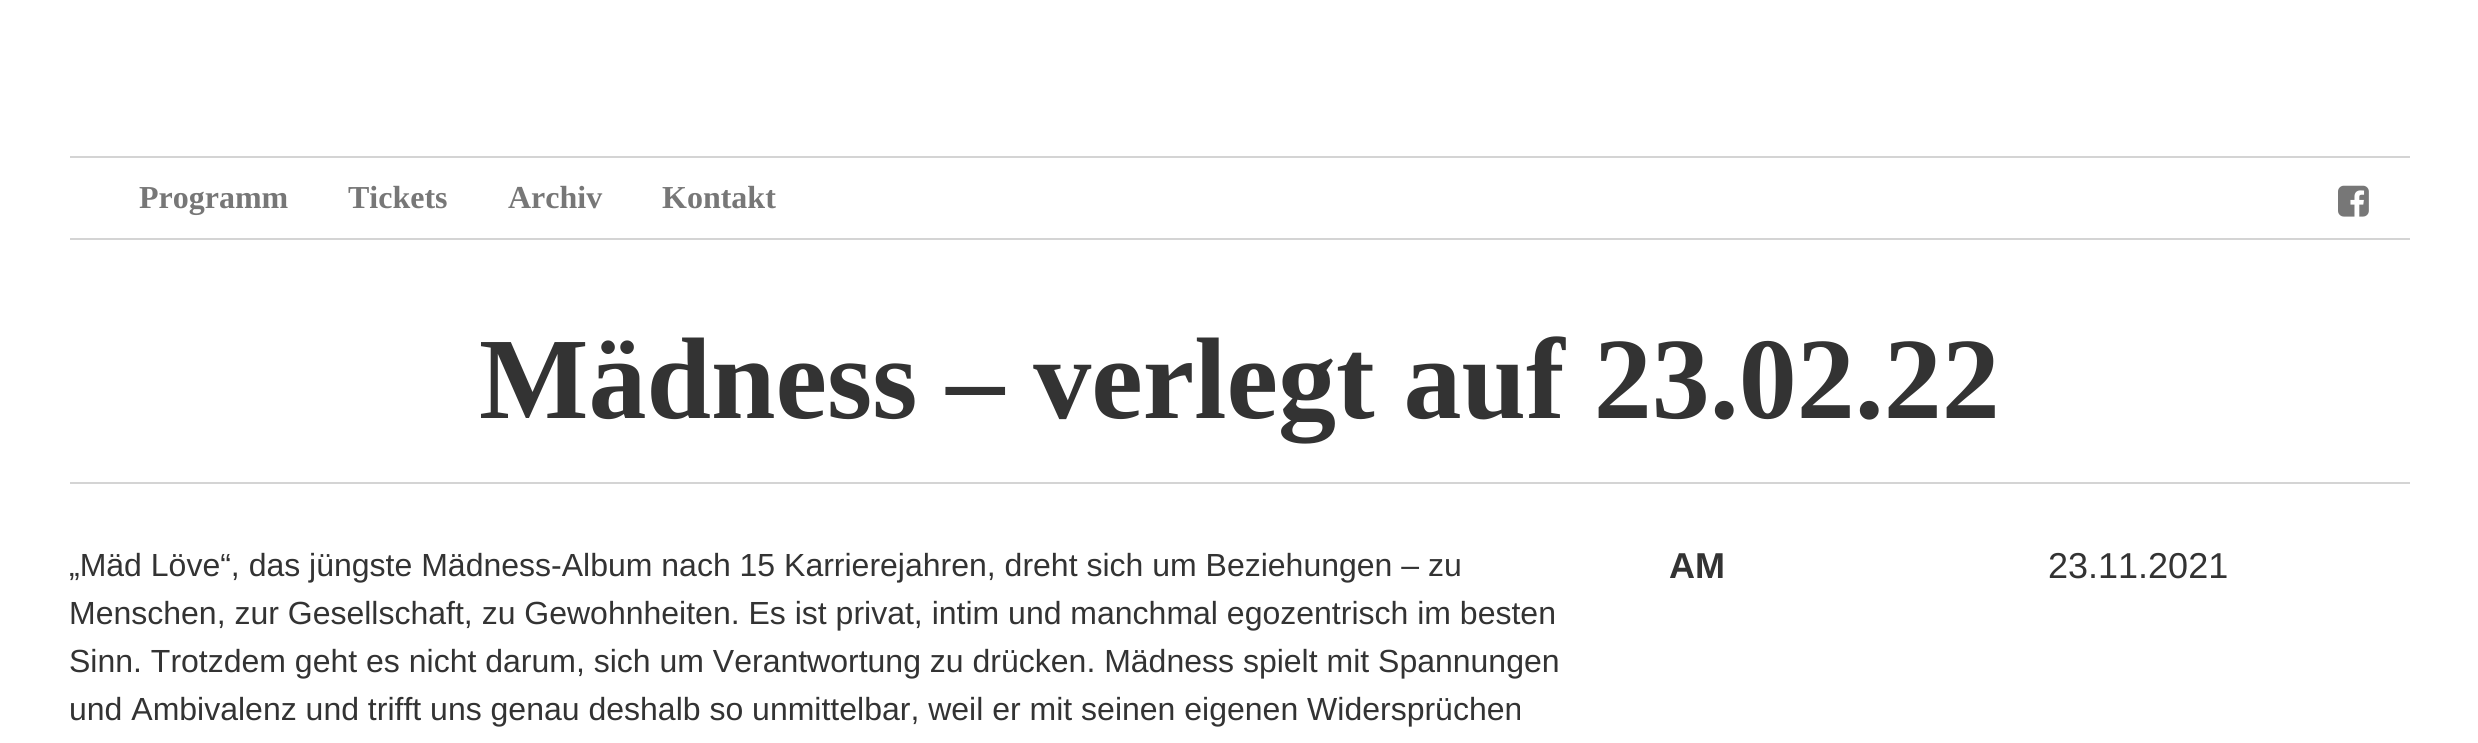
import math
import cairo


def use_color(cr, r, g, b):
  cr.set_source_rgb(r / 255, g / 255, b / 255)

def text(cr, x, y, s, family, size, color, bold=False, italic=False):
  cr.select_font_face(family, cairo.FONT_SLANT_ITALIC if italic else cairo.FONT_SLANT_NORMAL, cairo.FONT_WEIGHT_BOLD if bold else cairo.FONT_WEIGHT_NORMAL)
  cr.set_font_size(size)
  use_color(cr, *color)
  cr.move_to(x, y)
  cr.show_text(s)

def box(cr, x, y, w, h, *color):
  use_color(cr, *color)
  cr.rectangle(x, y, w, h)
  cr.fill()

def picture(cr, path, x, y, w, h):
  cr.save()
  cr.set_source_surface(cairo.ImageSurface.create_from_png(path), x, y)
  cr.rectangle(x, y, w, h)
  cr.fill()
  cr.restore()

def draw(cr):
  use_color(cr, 255, 255, 255)
  cr.paint()
  box(cr, 70, 156, 2340, 2, 212, 212, 212)
  box(cr, 70, 238, 2340, 2, 212, 212, 212)
  picture(cr, "img_01.png", 2338, 185, 31, 32)
  box(cr, 70, 482, 2340, 2, 212, 212, 212)
  text(cr, 139, 208, "Programm", "Liberation Serif", 32, (119, 119, 119), bold=True)
  text(cr, 348, 208, "Tickets", "Liberation Serif", 32, (119, 119, 119), bold=True)
  text(cr, 508, 208, "Archiv", "Liberation Serif", 32, (119, 119, 119), bold=True)
  text(cr, 662, 208, "Kontakt", "Liberation Serif", 32, (119, 119, 119), bold=True)
  text(cr, 479, 418, "Mädness – verlegt auf 23.02.22", "Liberation Serif", 116, (51, 51, 51), bold=True)
  text(cr, 69, 576, "„Mäd Löve“, das jüngste Mädness-Album nach 15 Karrierejahren, dreht sich um Beziehungen – zu", "Liberation Sans", 32, (51, 51, 51))
  text(cr, 69, 624, "Menschen, zur Gesellschaft, zu Gewohnheiten. Es ist privat, intim und manchmal egozentrisch im besten", "Liberation Sans", 32, (51, 51, 51))
  text(cr, 69, 672, "Sinn. Trotzdem geht es nicht darum, sich um Verantwortung zu drücken. Mädness spielt mit Spannungen", "Liberation Sans", 32, (51, 51, 51))
  text(cr, 69, 720, "und Ambivalenz und trifft uns genau deshalb so unmittelbar, weil er mit seinen eigenen Widersprüchen", "Liberation Sans", 32, (51, 51, 51))
  text(cr, 1669, 578, "AM", "Liberation Sans", 36, (51, 51, 51), bold=True)
  text(cr, 2048, 578, "23.11.2021", "Liberation Sans", 36, (51, 51, 51))


surface = cairo.ImageSurface(cairo.FORMAT_RGB24, 2478, 743)
cr = cairo.Context(surface)
options = cairo.FontOptions()
options.set_hint_metrics(cairo.HINT_METRICS_OFF)
options.set_hint_style(cairo.HINT_STYLE_NONE)
cr.set_font_options(options)
cr.set_miter_limit(4)
draw(cr)
surface.write_to_png("out.png")
